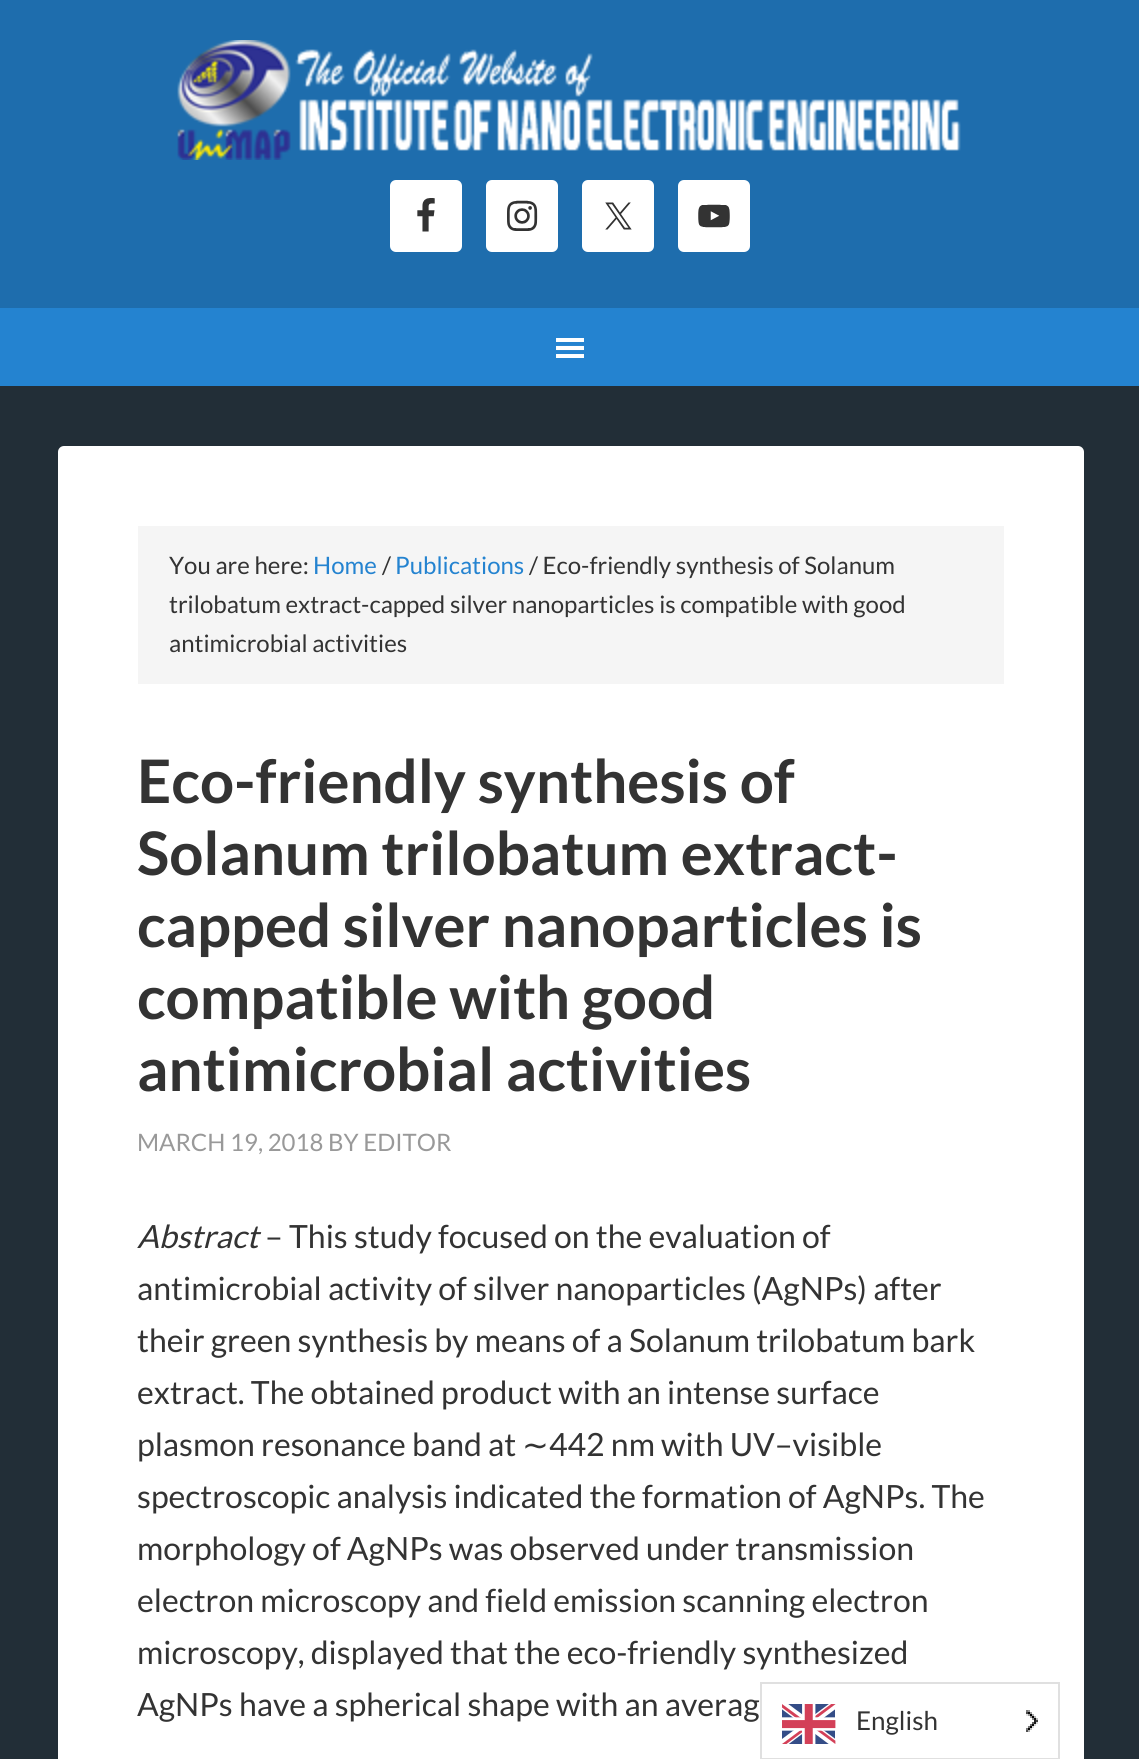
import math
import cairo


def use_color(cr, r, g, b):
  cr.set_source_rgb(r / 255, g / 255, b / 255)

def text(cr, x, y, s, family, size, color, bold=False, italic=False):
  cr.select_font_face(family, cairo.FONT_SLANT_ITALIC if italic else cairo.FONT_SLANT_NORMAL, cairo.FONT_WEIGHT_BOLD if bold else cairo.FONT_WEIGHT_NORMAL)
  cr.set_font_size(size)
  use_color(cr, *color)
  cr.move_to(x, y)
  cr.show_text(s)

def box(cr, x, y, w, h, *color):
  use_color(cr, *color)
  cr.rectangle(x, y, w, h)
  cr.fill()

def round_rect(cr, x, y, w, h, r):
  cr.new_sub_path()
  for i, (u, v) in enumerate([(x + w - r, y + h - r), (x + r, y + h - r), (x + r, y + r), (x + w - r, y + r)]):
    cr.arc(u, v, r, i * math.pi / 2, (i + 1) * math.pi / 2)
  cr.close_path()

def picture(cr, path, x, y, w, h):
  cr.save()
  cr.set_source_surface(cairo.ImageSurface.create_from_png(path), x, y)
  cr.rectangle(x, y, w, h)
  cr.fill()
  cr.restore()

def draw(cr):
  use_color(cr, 34, 46, 55)
  cr.paint()
  box(cr, 0, 0, 1139, 308, 30, 109, 173)
  picture(cr, "img_01.png", 177, 40, 784, 120)
  use_color(cr, 255, 255, 255)
  round_rect(cr, 390, 180, 72, 72, 6)
  cr.fill()
  picture(cr, "img_02.png", 417, 198, 18, 34)
  round_rect(cr, 486, 180, 72, 72, 6)
  cr.fill()
  picture(cr, "img_03.png", 507, 200, 31, 31)
  round_rect(cr, 582, 180, 72, 72, 6)
  cr.fill()
  picture(cr, "img_04.png", 605, 202, 27, 28)
  round_rect(cr, 678, 180, 72, 72, 6)
  cr.fill()
  picture(cr, "img_05.png", 698, 204, 32, 24)
  box(cr, 0, 308, 1139, 78, 36, 131, 208)
  picture(cr, "img_06.png", 556, 338, 28, 20)
  use_color(cr, 255, 255, 255)
  round_rect(cr, 58, 446, 1026, 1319, 6)
  cr.fill()
  box(cr, 138, 526, 866, 158, 245, 245, 245)
  cr.rectangle(761, 1683, 298, 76)
  use_color(cr, 224, 224, 224)
  cr.stroke()
  picture(cr, "img_07.png", 782, 1704, 54, 40)
  picture(cr, "img_08.png", 1026, 1710, 12, 22)
  text(cr, 169, 574, "You are here:", "Lato", 24, (51, 51, 51))
  text(cr, 313, 574, "Home", "Lato", 24, (36, 131, 208))
  text(cr, 382, 574, "/", "Lato", 24, (51, 51, 51))
  text(cr, 395, 574, "Publications", "Lato", 24, (36, 131, 208))
  text(cr, 529, 574, "/ Eco-friendly synthesis of Solanum", "Lato", 24, (51, 51, 51))
  text(cr, 169, 613, "trilobatum extract-capped silver nanoparticles is compatible with good", "Lato", 24, (51, 51, 51))
  text(cr, 169, 652, "antimicrobial activities", "Lato", 24, (51, 51, 51))
  text(cr, 137, 803, "Eco-friendly synthesis of", "Lato", 60, (51, 51, 51), bold=True)
  text(cr, 137, 875, "Solanum trilobatum extract-", "Lato", 60, (51, 51, 51), bold=True)
  text(cr, 137, 947, "capped silver nanoparticles is", "Lato", 60, (51, 51, 51), bold=True)
  text(cr, 137, 1019, "compatible with good", "Lato", 60, (51, 51, 51), bold=True)
  text(cr, 137, 1091, "antimicrobial activities", "Lato", 60, (51, 51, 51), bold=True)
  text(cr, 137, 1151, "MARCH 19, 2018 BY EDITOR", "Lato", 24, (153, 153, 153))
  text(cr, 137, 1248, "Abstract", "Lato", 32, (51, 51, 51), italic=True)
  text(cr, 265, 1248, "– This study focused on the evaluation of", "Lato", 32, (51, 51, 51))
  text(cr, 137, 1300, "antimicrobial activity of silver nanoparticles (AgNPs) after", "Lato", 32, (51, 51, 51))
  text(cr, 137, 1352, "their green synthesis by means of a Solanum trilobatum bark", "Lato", 32, (51, 51, 51))
  text(cr, 137, 1404, "extract. The obtained product with an intense surface", "Lato", 32, (51, 51, 51))
  text(cr, 137, 1456, "plasmon resonance band at", "Lato", 32, (51, 51, 51))
  text(cr, 522, 1456, "∼", "DejaVu Sans", 32, (51, 51, 51))
  text(cr, 549, 1456, "442 nm with UV–visible", "Lato", 32, (51, 51, 51))
  text(cr, 137, 1508, "spectroscopic analysis indicated the formation of AgNPs. The", "Lato", 32, (51, 51, 51))
  text(cr, 137, 1560, "morphology of AgNPs was observed under transmission", "Lato", 32, (51, 51, 51))
  text(cr, 137, 1612, "electron microscopy and field emission scanning electron", "Lato", 32, (51, 51, 51))
  text(cr, 137, 1664, "microscopy, displayed that the eco-friendly synthesized", "Lato", 32, (51, 51, 51))
  text(cr, 137, 1716, "AgNPs have a spherical shape with an averag", "Lato", 32, (51, 51, 51))
  text(cr, 856, 1730, "English", "Lato", 26, (51, 51, 51))


surface = cairo.ImageSurface(cairo.FORMAT_RGB24, 1139, 1759)
cr = cairo.Context(surface)
options = cairo.FontOptions()
options.set_hint_metrics(cairo.HINT_METRICS_OFF)
options.set_hint_style(cairo.HINT_STYLE_NONE)
cr.set_font_options(options)
cr.set_miter_limit(4)
draw(cr)
surface.write_to_png("out.png")
